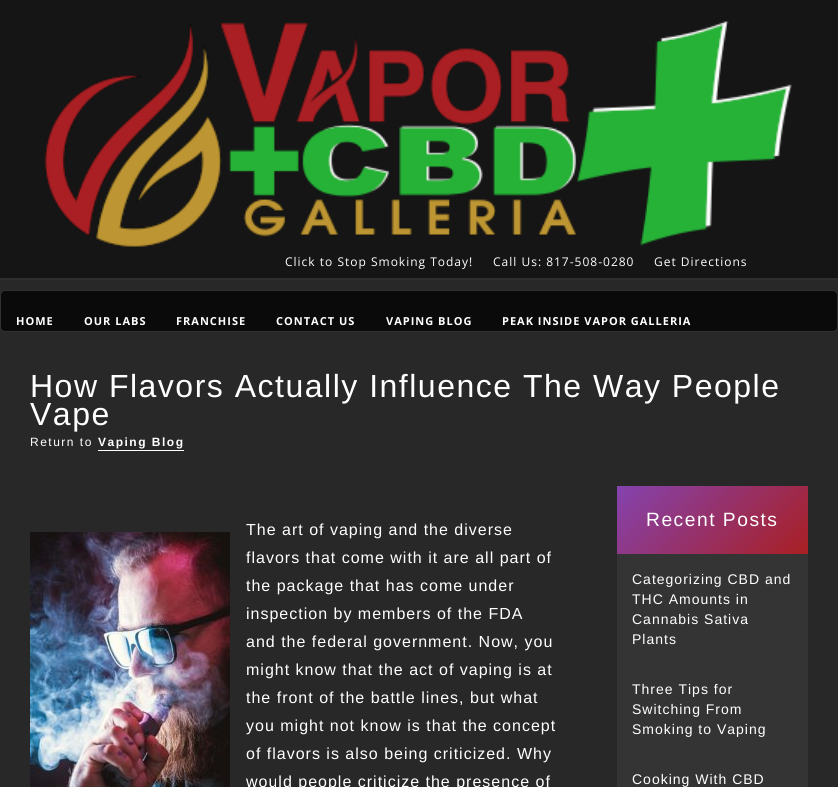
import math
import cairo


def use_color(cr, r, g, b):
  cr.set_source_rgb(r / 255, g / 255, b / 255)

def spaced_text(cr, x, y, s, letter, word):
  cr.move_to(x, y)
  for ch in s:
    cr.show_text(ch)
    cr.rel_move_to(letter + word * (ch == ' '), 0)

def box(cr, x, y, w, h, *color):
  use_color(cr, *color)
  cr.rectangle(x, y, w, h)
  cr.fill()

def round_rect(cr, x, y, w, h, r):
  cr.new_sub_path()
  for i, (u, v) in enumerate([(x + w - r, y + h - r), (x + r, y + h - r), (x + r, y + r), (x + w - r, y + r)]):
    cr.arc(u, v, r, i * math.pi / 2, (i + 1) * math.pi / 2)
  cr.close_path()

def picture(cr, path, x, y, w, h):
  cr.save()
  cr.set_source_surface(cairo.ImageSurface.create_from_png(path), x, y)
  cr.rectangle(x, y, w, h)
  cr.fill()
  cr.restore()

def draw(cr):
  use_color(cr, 40, 40, 40)
  cr.paint()
  box(cr, 0, 0, 838, 278, 21, 21, 21)
  box(cr, 0, 278, 838, 2, 47, 47, 47)
  picture(cr, "img_01.png", 44, 21, 748, 226)
  use_color(cr, 10, 10, 10)
  round_rect(cr, 0.5, 290.5, 837, 41, 4.5)
  cr.fill_preserve()
  use_color(cr, 49, 49, 49)
  cr.set_line_width(1)
  cr.stroke()
  box(cr, 98, 450, 86, 1, 255, 255, 255)
  picture(cr, "img_02.png", 30, 532, 200, 255)
  box(cr, 617, 554, 191, 233, 52, 52, 52)
  gradient = cairo.LinearGradient(648, 455, 777, 585)
  gradient.add_color_stop_rgba(0, 0.518, 0.263, 0.686, 1)
  gradient.add_color_stop_rgba(1, 0.663, 0.122, 0.137, 1)
  cr.set_source(gradient)
  cr.rectangle(617, 486, 191, 68)
  cr.fill()
  cr.select_font_face("Open Sans")
  cr.set_font_size(12)
  use_color(cr, 255, 255, 255)
  spaced_text(cr, 285, 266, "Click to Stop Smoking Today!", 1, 0)
  spaced_text(cr, 493, 266, "Call Us: 817-508-0280", 1, 0)
  spaced_text(cr, 654, 266, "Get Directions", 1, 0)
  cr.select_font_face("Open Sans", cairo.FONT_SLANT_NORMAL, cairo.FONT_WEIGHT_BOLD)
  cr.set_font_size(11)
  spaced_text(cr, 16, 325, "HOME", 1, 0)
  spaced_text(cr, 84, 325, "OUR LABS", 1, 0)
  spaced_text(cr, 176, 325, "FRANCHISE", 1, 0)
  spaced_text(cr, 276, 325, "CONTACT US", 1, 0)
  spaced_text(cr, 386, 325, "VAPING BLOG", 1, 0)
  spaced_text(cr, 502, 325, "PEAK INSIDE VAPOR GALLERIA", 1, 0)
  cr.select_font_face("Liberation Sans")
  cr.set_font_size(32)
  spaced_text(cr, 30, 397, "How Flavors Actually Influence The Way People", 1.5, 0)
  spaced_text(cr, 30, 425, "Vape", 1.5, 0)
  cr.set_font_size(12)
  spaced_text(cr, 30, 446, "Return to", 1.5, 0)
  cr.select_font_face("Liberation Sans", cairo.FONT_SLANT_NORMAL, cairo.FONT_WEIGHT_BOLD)
  spaced_text(cr, 98, 446, "Vaping Blog", 1.5, 0)
  cr.select_font_face("Liberation Sans")
  cr.set_font_size(16)
  spaced_text(cr, 246, 535, "The art of vaping and the diverse", 1, 0)
  spaced_text(cr, 246, 563, "flavors that come with it are all part of", 1, 0)
  spaced_text(cr, 246, 591, "the package that has come under", 1, 0)
  spaced_text(cr, 246, 619, "inspection by members of the FDA", 1, 0)
  spaced_text(cr, 246, 647, "and the federal government. Now, you", 1, 0)
  spaced_text(cr, 246, 675, "might know that the act of vaping is at", 1, 0)
  spaced_text(cr, 246, 703, "the front of the battle lines, but what", 1, 0)
  spaced_text(cr, 246, 731, "you might not know is that the concept", 1, 0)
  spaced_text(cr, 246, 759, "of flavors is also being criticized. Why", 1, 0)
  spaced_text(cr, 246, 787, "would people criticize the presence of", 1, 0)
  cr.set_font_size(19.25)
  spaced_text(cr, 646, 526, "Recent Posts", 1.5, 0)
  cr.set_font_size(14)
  spaced_text(cr, 632, 584, "Categorizing CBD and", 1, 0)
  spaced_text(cr, 632, 604, "THC Amounts in", 1, 0)
  spaced_text(cr, 632, 624, "Cannabis Sativa", 1, 0)
  spaced_text(cr, 632, 644, "Plants", 1, 0)
  spaced_text(cr, 632, 694, "Three Tips for", 1, 0)
  spaced_text(cr, 632, 714, "Switching From", 1, 0)
  spaced_text(cr, 632, 734, "Smoking to Vaping", 1, 0)
  spaced_text(cr, 632, 784, "Cooking With CBD", 1, 0)


surface = cairo.ImageSurface(cairo.FORMAT_RGB24, 838, 787)
cr = cairo.Context(surface)
options = cairo.FontOptions()
options.set_hint_metrics(cairo.HINT_METRICS_OFF)
options.set_hint_style(cairo.HINT_STYLE_NONE)
cr.set_font_options(options)
cr.set_miter_limit(4)
draw(cr)
surface.write_to_png("out.png")
